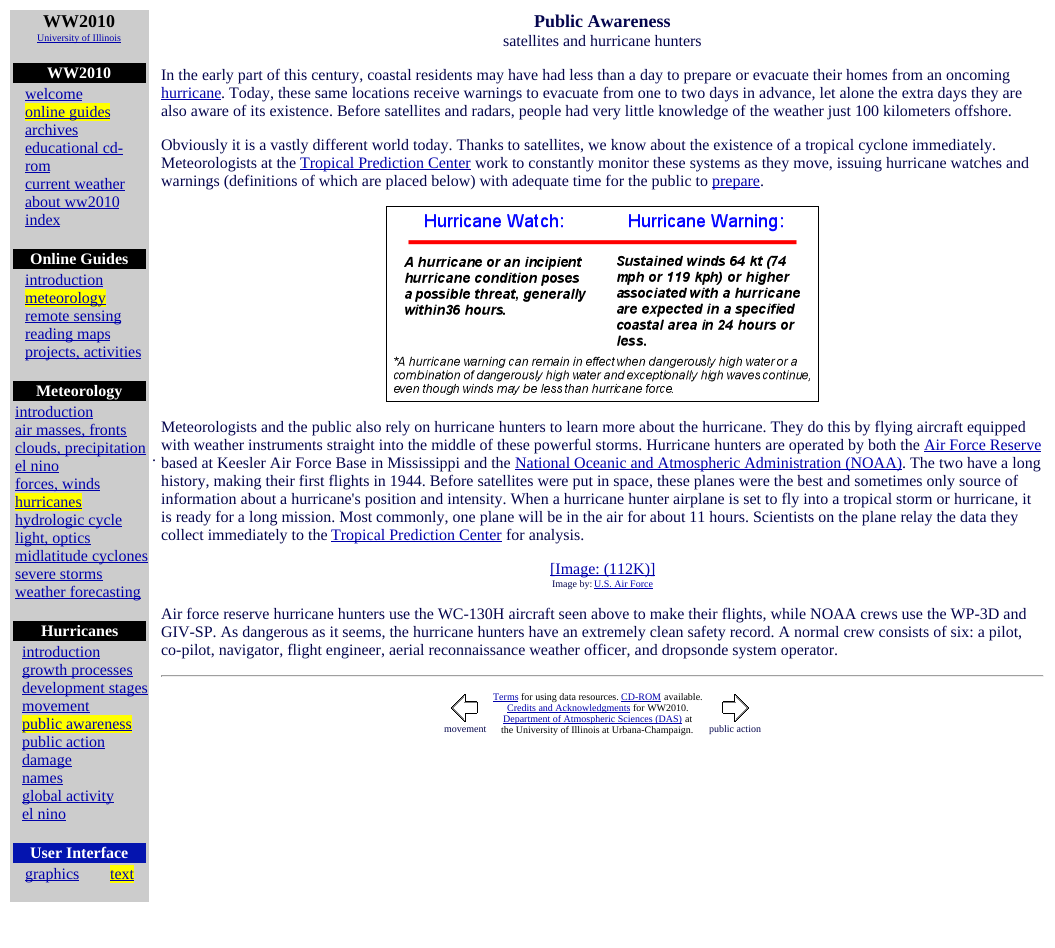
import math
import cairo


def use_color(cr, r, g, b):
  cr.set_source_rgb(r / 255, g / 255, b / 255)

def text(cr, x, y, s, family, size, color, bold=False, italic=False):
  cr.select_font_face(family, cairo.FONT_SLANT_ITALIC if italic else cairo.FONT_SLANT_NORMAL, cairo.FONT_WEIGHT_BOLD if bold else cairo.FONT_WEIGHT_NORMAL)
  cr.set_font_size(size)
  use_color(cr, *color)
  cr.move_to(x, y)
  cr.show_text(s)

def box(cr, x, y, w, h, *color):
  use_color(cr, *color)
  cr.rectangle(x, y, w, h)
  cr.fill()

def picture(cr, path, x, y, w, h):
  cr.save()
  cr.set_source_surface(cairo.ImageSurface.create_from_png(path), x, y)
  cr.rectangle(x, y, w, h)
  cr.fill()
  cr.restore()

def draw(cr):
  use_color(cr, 255, 255, 255)
  cr.paint()
  box(cr, 10, 10, 139, 892, 204, 204, 204)
  box(cr, 37, 42, 84, 1, 0, 0, 170)
  box(cr, 13, 63, 133, 20, 0, 0, 0)
  box(cr, 25, 100, 57, 1, 0, 0, 170)
  box(cr, 25, 103, 85, 18, 255, 255, 0)
  box(cr, 25, 118, 85, 1, 0, 0, 170)
  box(cr, 25, 136, 53, 1, 0, 0, 170)
  box(cr, 25, 154, 98, 1, 0, 0, 170)
  box(cr, 25, 172, 25, 1, 0, 0, 170)
  box(cr, 25, 190, 100, 1, 0, 0, 170)
  box(cr, 25, 208, 94, 1, 0, 0, 170)
  box(cr, 25, 226, 35, 1, 0, 0, 170)
  box(cr, 13, 249, 133, 20, 0, 0, 0)
  box(cr, 25, 286, 78, 1, 0, 0, 170)
  box(cr, 25, 289, 81, 18, 255, 255, 0)
  box(cr, 25, 304, 81, 1, 0, 0, 170)
  box(cr, 25, 322, 96, 1, 0, 0, 170)
  box(cr, 25, 340, 85, 1, 0, 0, 170)
  box(cr, 25, 358, 116, 1, 0, 0, 170)
  box(cr, 13, 381, 133, 20, 0, 0, 0)
  box(cr, 15, 418, 78, 1, 0, 0, 170)
  box(cr, 15, 436, 112, 1, 0, 0, 170)
  box(cr, 15, 454, 131, 1, 0, 0, 170)
  box(cr, 15, 472, 44, 1, 0, 0, 170)
  box(cr, 15, 490, 85, 1, 0, 0, 170)
  box(cr, 15, 493, 67, 18, 255, 255, 0)
  box(cr, 15, 508, 67, 1, 0, 0, 170)
  box(cr, 15, 526, 107, 1, 0, 0, 170)
  box(cr, 15, 544, 76, 1, 0, 0, 170)
  box(cr, 15, 562, 133, 1, 0, 0, 170)
  box(cr, 15, 580, 88, 1, 0, 0, 170)
  box(cr, 15, 598, 126, 1, 0, 0, 170)
  box(cr, 13, 621, 133, 20, 0, 0, 0)
  box(cr, 22, 658, 78, 1, 0, 0, 170)
  box(cr, 22, 676, 111, 1, 0, 0, 170)
  box(cr, 22, 694, 126, 1, 0, 0, 170)
  box(cr, 22, 712, 68, 1, 0, 0, 170)
  box(cr, 22, 715, 110, 18, 255, 255, 0)
  box(cr, 22, 730, 110, 1, 0, 0, 170)
  box(cr, 22, 748, 83, 1, 0, 0, 170)
  box(cr, 22, 766, 50, 1, 0, 0, 170)
  box(cr, 22, 784, 41, 1, 0, 0, 170)
  box(cr, 22, 802, 92, 1, 0, 0, 170)
  box(cr, 22, 820, 44, 1, 0, 0, 170)
  box(cr, 13, 843, 133, 20, 4, 20, 175)
  box(cr, 25, 880, 54, 1, 0, 0, 170)
  box(cr, 110, 865, 24, 18, 255, 255, 0)
  box(cr, 110, 880, 24, 1, 0, 0, 170)
  box(cr, 161, 99, 60, 1, 0, 0, 170)
  box(cr, 300, 169, 171, 1, 0, 0, 170)
  box(cr, 712, 187, 48, 1, 0, 0, 170)
  picture(cr, "img_01.png", 386, 206, 433, 196)
  box(cr, 924, 451, 117, 1, 0, 0, 170)
  box(cr, 515, 469, 387, 1, 0, 0, 170)
  box(cr, 331, 541, 171, 1, 0, 0, 170)
  box(cr, 550, 575, 105, 1, 0, 0, 170)
  box(cr, 594, 588, 59, 1, 0, 0, 170)
  box(cr, 161, 675, 883, 1, 159, 159, 159)
  box(cr, 1043, 675, 1, 2, 238, 238, 238)
  box(cr, 161, 676, 883, 1, 238, 238, 238)
  box(cr, 161, 675, 1, 2, 159, 159, 159)
  picture(cr, "img_02.png", 451, 694, 27, 28)
  box(cr, 493, 701, 25, 1, 0, 0, 170)
  box(cr, 621, 701, 40, 1, 0, 0, 170)
  box(cr, 507, 712, 123, 1, 0, 0, 170)
  box(cr, 503, 723, 179, 1, 0, 0, 170)
  picture(cr, "img_03.png", 722, 694, 27, 28)
  text(cr, 43, 27, "WW2010", "Liberation Serif", 18, (0, 0, 0), bold=True)
  text(cr, 37, 41, "University of Illinois", "Liberation Serif", 10, (0, 0, 170))
  text(cr, 47, 78, "WW2010", "Liberation Serif", 16, (255, 255, 255), bold=True)
  text(cr, 25, 99, "welcome", "Liberation Serif", 16, (0, 0, 170))
  text(cr, 25, 117, "online guides", "Liberation Serif", 16, (0, 0, 170))
  text(cr, 25, 135, "archives", "Liberation Serif", 16, (0, 0, 170))
  text(cr, 25, 153, "educational cd-", "Liberation Serif", 16, (0, 0, 170))
  text(cr, 25, 171, "rom", "Liberation Serif", 16, (0, 0, 170))
  text(cr, 25, 189, "current weather", "Liberation Serif", 16, (0, 0, 170))
  text(cr, 25, 207, "about ww2010", "Liberation Serif", 16, (0, 0, 170))
  text(cr, 25, 225, "index", "Liberation Serif", 16, (0, 0, 170))
  text(cr, 30, 264, "Online Guides", "Liberation Serif", 16, (255, 255, 255), bold=True)
  text(cr, 25, 285, "introduction", "Liberation Serif", 16, (0, 0, 170))
  text(cr, 25, 303, "meteorology", "Liberation Serif", 16, (0, 0, 170))
  text(cr, 25, 321, "remote sensing", "Liberation Serif", 16, (0, 0, 170))
  text(cr, 25, 339, "reading maps", "Liberation Serif", 16, (0, 0, 170))
  text(cr, 25, 357, "projects, activities", "Liberation Serif", 16, (0, 0, 170))
  text(cr, 36, 396, "Meteorology", "Liberation Serif", 16, (255, 255, 255), bold=True)
  text(cr, 15, 417, "introduction", "Liberation Serif", 16, (0, 0, 170))
  text(cr, 15, 435, "air masses, fronts", "Liberation Serif", 16, (0, 0, 170))
  text(cr, 15, 453, "clouds, precipitation", "Liberation Serif", 16, (0, 0, 170))
  text(cr, 15, 471, "el nino", "Liberation Serif", 16, (0, 0, 170))
  text(cr, 15, 489, "forces, winds", "Liberation Serif", 16, (0, 0, 170))
  text(cr, 15, 507, "hurricanes", "Liberation Serif", 16, (0, 0, 170))
  text(cr, 15, 525, "hydrologic cycle", "Liberation Serif", 16, (0, 0, 170))
  text(cr, 15, 543, "light, optics", "Liberation Serif", 16, (0, 0, 170))
  text(cr, 15, 561, "midlatitude cyclones", "Liberation Serif", 16, (0, 0, 170))
  text(cr, 15, 579, "severe storms", "Liberation Serif", 16, (0, 0, 170))
  text(cr, 15, 597, "weather forecasting", "Liberation Serif", 16, (0, 0, 170))
  text(cr, 41, 636, "Hurricanes", "Liberation Serif", 16, (255, 255, 255), bold=True)
  text(cr, 22, 657, "introduction", "Liberation Serif", 16, (0, 0, 170))
  text(cr, 22, 675, "growth processes", "Liberation Serif", 16, (0, 0, 170))
  text(cr, 22, 693, "development stages", "Liberation Serif", 16, (0, 0, 170))
  text(cr, 22, 711, "movement", "Liberation Serif", 16, (0, 0, 170))
  text(cr, 22, 729, "public awareness", "Liberation Serif", 16, (0, 0, 170))
  text(cr, 22, 747, "public action", "Liberation Serif", 16, (0, 0, 170))
  text(cr, 22, 765, "damage", "Liberation Serif", 16, (0, 0, 170))
  text(cr, 22, 783, "names", "Liberation Serif", 16, (0, 0, 170))
  text(cr, 22, 801, "global activity", "Liberation Serif", 16, (0, 0, 170))
  text(cr, 22, 819, "el nino", "Liberation Serif", 16, (0, 0, 170))
  text(cr, 30, 858, "User Interface", "Liberation Serif", 16, (255, 255, 255), bold=True)
  text(cr, 25, 879, "graphics", "Liberation Serif", 16, (0, 0, 170))
  text(cr, 110, 879, "text", "Liberation Serif", 16, (0, 0, 170))
  text(cr, 152, 461, ".", "Liberation Serif", 16, (4, 5, 77))
  text(cr, 534, 27, "Public Awareness", "Liberation Serif", 18, (4, 5, 77), bold=True)
  text(cr, 503, 46, "satellites and hurricane hunters", "Liberation Serif", 16, (4, 5, 77))
  text(cr, 161, 80, "In the early part of this century, coastal residents may have had less than a day to prepare or evacuate their homes from an oncoming", "Liberation Serif", 16, (4, 5, 77))
  text(cr, 161, 98, "hurricane", "Liberation Serif", 16, (0, 0, 170))
  text(cr, 221, 98, ". Today, these same locations receive warnings to evacuate from one to two days in advance, let alone the extra days they are", "Liberation Serif", 16, (4, 5, 77))
  text(cr, 161, 116, "also aware of its existence. Before satellites and radars, people had very little knowledge of the weather just 100 kilometers offshore.", "Liberation Serif", 16, (4, 5, 77))
  text(cr, 161, 150, "Obviously it is a vastly different world today. Thanks to satellites, we know about the existence of a tropical cyclone immediately.", "Liberation Serif", 16, (4, 5, 77))
  text(cr, 161, 168, "Meteorologists at the", "Liberation Serif", 16, (4, 5, 77))
  text(cr, 300, 168, "Tropical Prediction Center", "Liberation Serif", 16, (0, 0, 170))
  text(cr, 475, 168, "work to constantly monitor these systems as they move, issuing hurricane watches and", "Liberation Serif", 16, (4, 5, 77))
  text(cr, 161, 186, "warnings (definitions of which are placed below) with adequate time for the public to", "Liberation Serif", 16, (4, 5, 77))
  text(cr, 712, 186, "prepare", "Liberation Serif", 16, (0, 0, 170))
  text(cr, 760, 186, ".", "Liberation Serif", 16, (4, 5, 77))
  text(cr, 161, 432, "Meteorologists and the public also rely on hurricane hunters to learn more about the hurricane. They do this by flying aircraft equipped", "Liberation Serif", 16, (4, 5, 77))
  text(cr, 161, 450, "with weather instruments straight into the middle of these powerful storms. Hurricane hunters are operated by both the", "Liberation Serif", 16, (4, 5, 77))
  text(cr, 924, 450, "Air Force Reserve", "Liberation Serif", 16, (0, 0, 170))
  text(cr, 161, 468, "based at Keesler Air Force Base in Mississippi and the", "Liberation Serif", 16, (4, 5, 77))
  text(cr, 515, 468, "National Oceanic and Atmospheric Administration (NOAA)", "Liberation Serif", 16, (0, 0, 170))
  text(cr, 902, 468, ". The two have a long", "Liberation Serif", 16, (4, 5, 77))
  text(cr, 161, 486, "history, making their first flights in 1944. Before satellites were put in space, these planes were the best and sometimes only source of", "Liberation Serif", 16, (4, 5, 77))
  text(cr, 161, 504, "information about a hurricane's position and intensity. When a hurricane hunter airplane is set to fly into a tropical storm or hurricane, it", "Liberation Serif", 16, (4, 5, 77))
  text(cr, 161, 522, "is ready for a long mission. Most commonly, one plane will be in the air for about 11 hours. Scientists on the plane relay the data they", "Liberation Serif", 16, (4, 5, 77))
  text(cr, 161, 540, "collect immediately to the", "Liberation Serif", 16, (4, 5, 77))
  text(cr, 331, 540, "Tropical Prediction Center", "Liberation Serif", 16, (0, 0, 170))
  text(cr, 506, 540, "for analysis.", "Liberation Serif", 16, (4, 5, 77))
  text(cr, 550, 574, "[Image: (112K)]", "Liberation Serif", 16, (0, 0, 170))
  text(cr, 552, 587, "Image by:", "Liberation Serif", 10, (4, 5, 77))
  text(cr, 594, 587, "U.S. Air Force", "Liberation Serif", 10, (0, 0, 170))
  text(cr, 161, 619, "Air force reserve hurricane hunters use the WC-130H aircraft seen above to make their flights, while NOAA crews use the WP-3D and", "Liberation Serif", 16, (4, 5, 77))
  text(cr, 161, 637, "GIV-SP. As dangerous as it seems, the hurricane hunters have an extremely clean safety record. A normal crew consists of six: a pilot,", "Liberation Serif", 16, (4, 5, 77))
  text(cr, 161, 655, "co-pilot, navigator, flight engineer, aerial reconnaissance weather officer, and dropsonde system operator.", "Liberation Serif", 16, (4, 5, 77))
  text(cr, 444, 732, "movement", "Liberation Serif", 10, (4, 5, 77))
  text(cr, 493, 700, "Terms", "Liberation Serif", 10, (0, 0, 170))
  text(cr, 521, 700, "for using data resources.", "Liberation Serif", 10, (0, 0, 0))
  text(cr, 621, 700, "CD-ROM", "Liberation Serif", 10, (0, 0, 170))
  text(cr, 664, 700, "available.", "Liberation Serif", 10, (0, 0, 0))
  text(cr, 507, 711, "Credits and Acknowledgments", "Liberation Serif", 10, (0, 0, 170))
  text(cr, 633, 711, "for WW2010.", "Liberation Serif", 10, (0, 0, 0))
  text(cr, 503, 722, "Department of Atmospheric Sciences (DAS)", "Liberation Serif", 10, (0, 0, 170))
  text(cr, 685, 722, "at", "Liberation Serif", 10, (0, 0, 0))
  text(cr, 501, 733, "the University of Illinois at Urbana-Champaign.", "Liberation Serif", 10, (0, 0, 0))
  text(cr, 709, 732, "public action", "Liberation Serif", 10, (4, 5, 77))


surface = cairo.ImageSurface(cairo.FORMAT_RGB24, 1055, 948)
cr = cairo.Context(surface)
options = cairo.FontOptions()
options.set_hint_metrics(cairo.HINT_METRICS_OFF)
options.set_hint_style(cairo.HINT_STYLE_NONE)
cr.set_font_options(options)
cr.set_miter_limit(4)
draw(cr)
surface.write_to_png("out.png")
